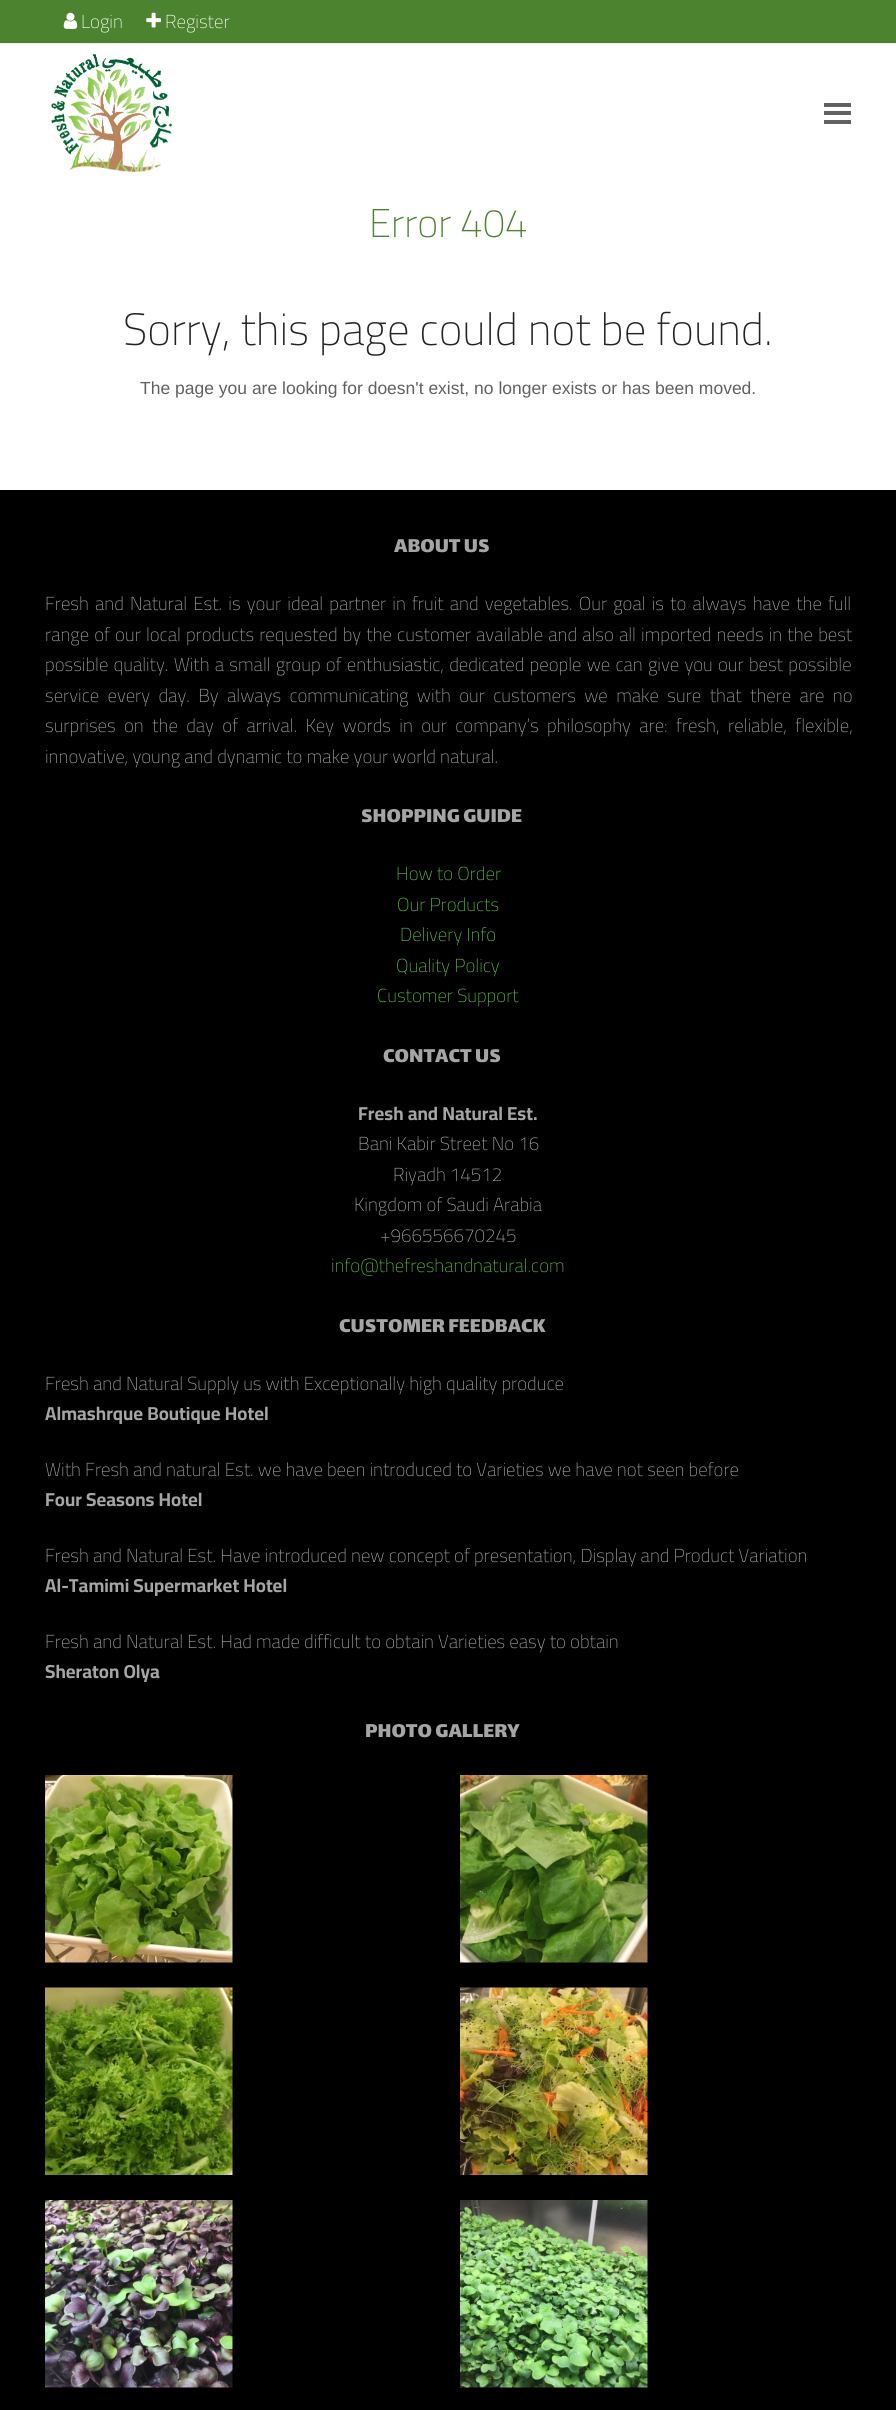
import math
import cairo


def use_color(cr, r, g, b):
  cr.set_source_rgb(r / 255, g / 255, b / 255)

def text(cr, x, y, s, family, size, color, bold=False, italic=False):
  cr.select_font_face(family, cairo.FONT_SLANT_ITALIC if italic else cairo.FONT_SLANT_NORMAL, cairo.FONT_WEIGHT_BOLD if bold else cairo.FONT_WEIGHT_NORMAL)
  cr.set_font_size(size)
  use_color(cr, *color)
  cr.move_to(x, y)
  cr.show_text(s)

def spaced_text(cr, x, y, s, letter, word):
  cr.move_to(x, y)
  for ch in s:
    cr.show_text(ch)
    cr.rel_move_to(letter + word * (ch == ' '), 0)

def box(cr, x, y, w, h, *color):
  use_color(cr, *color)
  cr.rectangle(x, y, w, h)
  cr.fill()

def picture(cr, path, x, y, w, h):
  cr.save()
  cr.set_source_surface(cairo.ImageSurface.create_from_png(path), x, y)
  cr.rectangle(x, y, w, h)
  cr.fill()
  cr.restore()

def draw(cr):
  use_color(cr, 255, 255, 255)
  cr.paint()
  box(cr, 0, 0, 896, 43, 76, 131, 47)
  box(cr, 0, 43, 896, 1, 238, 238, 238)
  picture(cr, "img_01.png", 63, 12, 15, 17)
  picture(cr, "img_02.png", 146, 12, 15, 16)
  picture(cr, "img_03.png", 51, 54, 122, 118)
  box(cr, 824, 111, 27, 4, 97, 97, 97)
  box(cr, 824, 103, 27, 4, 97, 97, 97)
  box(cr, 824, 120, 27, 4, 97, 97, 97)
  box(cr, 0, 490, 896, 1920, 0, 0, 0)
  picture(cr, "img_04.png", 45, 1775, 188, 188)
  picture(cr, "img_05.png", 460, 1775, 188, 188)
  picture(cr, "img_06.png", 45, 1987, 188, 188)
  picture(cr, "img_07.png", 460, 1987, 188, 188)
  picture(cr, "img_08.png", 45, 2200, 188, 188)
  picture(cr, "img_09.png", 460, 2200, 188, 188)
  text(cr, 81, 28, "Login", "Cairo ExtraLight", 18.75, (255, 255, 255))
  text(cr, 165, 28, "Register", "Cairo ExtraLight", 18.75, (255, 255, 255))
  text(cr, 369, 237, "Error 404", "Cairo ExtraLight", 40, (76, 131, 47))
  text(cr, 123, 345, "Sorry, this page could not be found.", "Cairo ExtraLight", 45, (34, 34, 34))
  text(cr, 140, 394, "The page you are looking for doesn't exist, no longer exists or has been moved.", "Liberation Sans", 17.5, (97, 97, 97))
  text(cr, 394, 552, "ABOUT US", "Lalezar", 22.5, (165, 165, 165))
  cr.select_font_face("Cairo ExtraLight")
  cr.set_font_size(18.75)
  spaced_text(cr, 45, 610, "Fresh and Natural Est. is your ideal partner in fruit and vegetables. Our goal is to always have the full", 0, 2)
  spaced_text(cr, 45, 641, "range of our local products requested by the customer available and also all imported needs in the best", 0, 1)
  spaced_text(cr, 45, 671, "possible quality. With a small group of enthusiastic, dedicated people we can give you our best possible", 0, 1.1)
  spaced_text(cr, 45, 702, "service every day. By always communicating with our customers we make sure that there are no", 0, 4.25)
  spaced_text(cr, 45, 732, "surprises on the day of arrival. Key words in our company’s philosophy are: fresh, reliable, flexible,", 0, 4.25)
  text(cr, 45, 763, "innovative, young and dynamic to make your world natural.", "Cairo ExtraLight", 18.75, (165, 165, 165))
  text(cr, 361, 822, "SHOPPING GUIDE", "Lalezar", 22.5, (165, 165, 165))
  text(cr, 396, 880, "How to Order", "Cairo ExtraLight", 18.75, (89, 191, 66))
  text(cr, 397, 911, "Our Products", "Cairo ExtraLight", 18.75, (89, 191, 66))
  text(cr, 400, 941, "Delivery Info", "Cairo ExtraLight", 18.75, (89, 191, 66))
  text(cr, 396, 972, "Quality Policy", "Cairo ExtraLight", 18.75, (89, 191, 66))
  text(cr, 377, 1002, "Customer Support", "Cairo ExtraLight", 18.75, (89, 191, 66))
  text(cr, 383, 1062, "CONTACT US", "Lalezar", 22.5, (165, 165, 165))
  text(cr, 358, 1120, "Fresh and Natural Est.", "Cairo", 18.75, (165, 165, 165), bold=True)
  text(cr, 358, 1150, "Bani Kabir Street No 16", "Cairo ExtraLight", 18.75, (165, 165, 165))
  text(cr, 393, 1181, "Riyadh 14512", "Cairo ExtraLight", 18.75, (165, 165, 165))
  text(cr, 354, 1211, "Kingdom of Saudi Arabia", "Cairo ExtraLight", 18.75, (165, 165, 165))
  text(cr, 380, 1242, "+966556670245", "Cairo ExtraLight", 18.75, (165, 165, 165))
  text(cr, 331, 1272, "info@thefreshandnatural.com", "Cairo ExtraLight", 18.75, (89, 191, 66))
  text(cr, 339, 1332, "CUSTOMER FEEDBACK", "Lalezar", 22.5, (165, 165, 165))
  text(cr, 45, 1390, "Fresh and Natural Supply us with Exceptionally high quality produce", "Cairo ExtraLight", 18.75, (165, 165, 165))
  text(cr, 45, 1420, "Almashrque Boutique Hotel", "Cairo", 18.75, (165, 165, 165), bold=True)
  text(cr, 45, 1476, "With Fresh and natural Est. we have been introduced to Varieties we have not seen before", "Cairo ExtraLight", 18.75, (165, 165, 165))
  text(cr, 45, 1506, "Four Seasons Hotel", "Cairo", 18.75, (165, 165, 165), bold=True)
  text(cr, 45, 1562, "Fresh and Natural Est. Have introduced new concept of presentation, Display and Product Variation", "Cairo ExtraLight", 18.75, (165, 165, 165))
  text(cr, 45, 1592, "Al-Tamimi Supermarket Hotel", "Cairo", 18.75, (165, 165, 165), bold=True)
  text(cr, 45, 1648, "Fresh and Natural Est. Had made difficult to obtain Varieties easy to obtain", "Cairo ExtraLight", 18.75, (165, 165, 165))
  text(cr, 45, 1678, "Sheraton Olya", "Cairo", 18.75, (165, 165, 165), bold=True)
  text(cr, 365, 1737, "PHOTO GALLERY", "Lalezar", 22.5, (165, 165, 165))


surface = cairo.ImageSurface(cairo.FORMAT_RGB24, 896, 2410)
cr = cairo.Context(surface)
options = cairo.FontOptions()
options.set_hint_metrics(cairo.HINT_METRICS_OFF)
options.set_hint_style(cairo.HINT_STYLE_NONE)
cr.set_font_options(options)
cr.set_miter_limit(4)
draw(cr)
surface.write_to_png("out.png")
